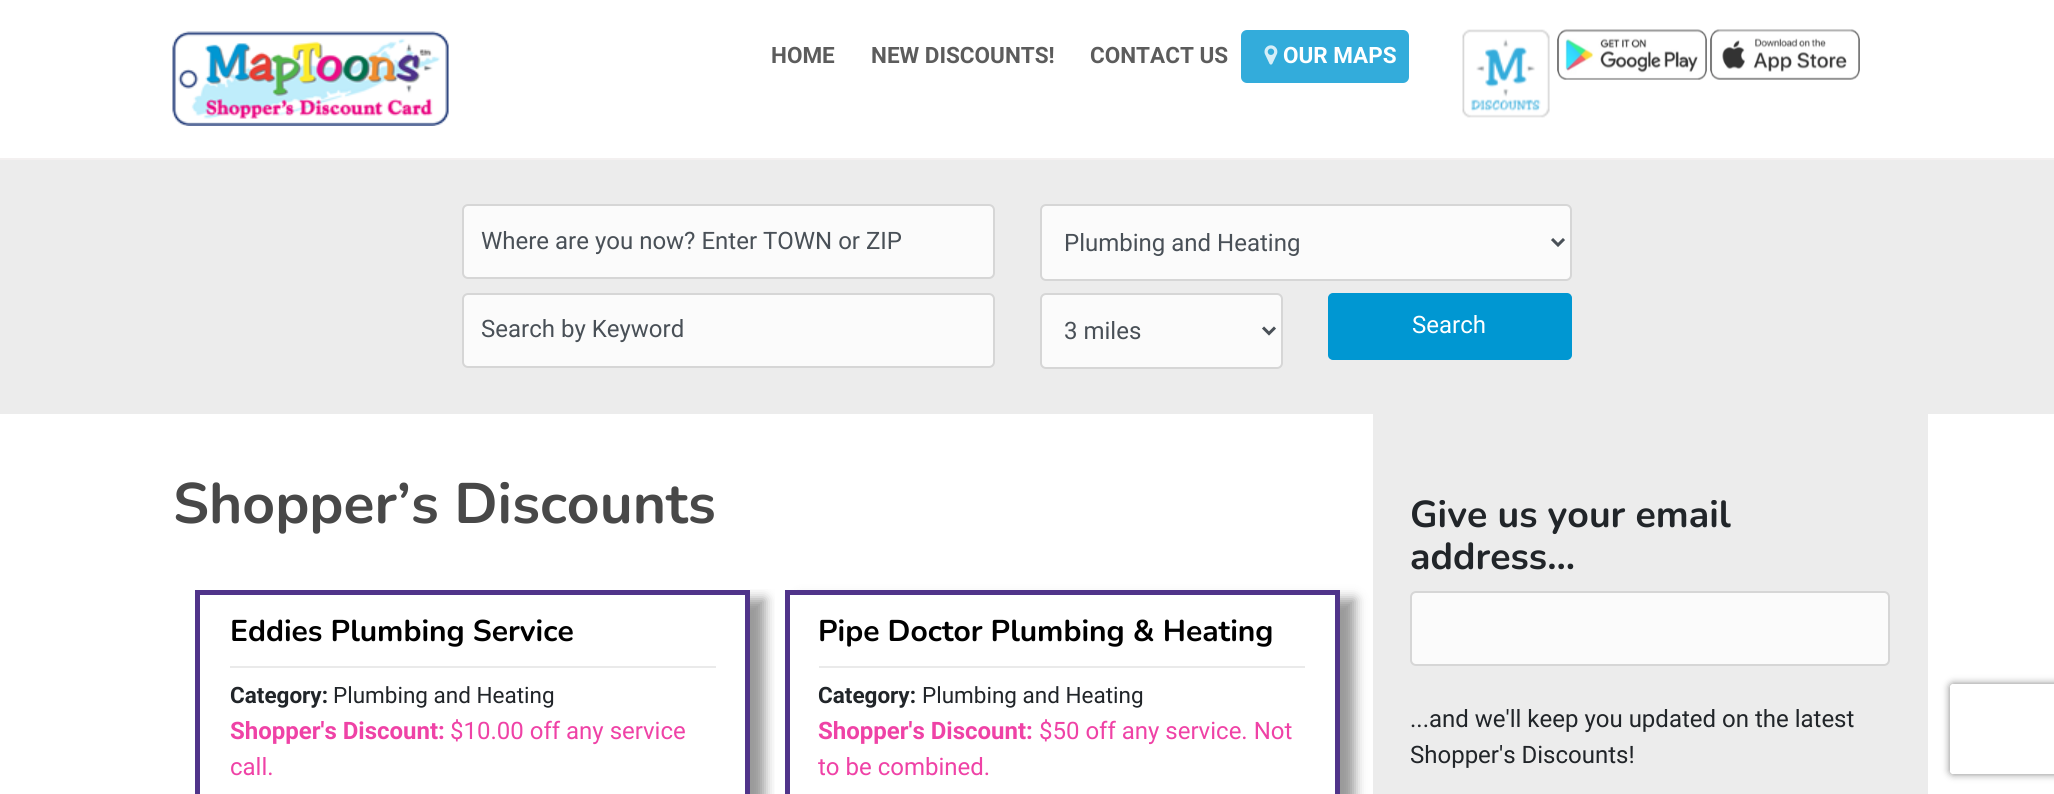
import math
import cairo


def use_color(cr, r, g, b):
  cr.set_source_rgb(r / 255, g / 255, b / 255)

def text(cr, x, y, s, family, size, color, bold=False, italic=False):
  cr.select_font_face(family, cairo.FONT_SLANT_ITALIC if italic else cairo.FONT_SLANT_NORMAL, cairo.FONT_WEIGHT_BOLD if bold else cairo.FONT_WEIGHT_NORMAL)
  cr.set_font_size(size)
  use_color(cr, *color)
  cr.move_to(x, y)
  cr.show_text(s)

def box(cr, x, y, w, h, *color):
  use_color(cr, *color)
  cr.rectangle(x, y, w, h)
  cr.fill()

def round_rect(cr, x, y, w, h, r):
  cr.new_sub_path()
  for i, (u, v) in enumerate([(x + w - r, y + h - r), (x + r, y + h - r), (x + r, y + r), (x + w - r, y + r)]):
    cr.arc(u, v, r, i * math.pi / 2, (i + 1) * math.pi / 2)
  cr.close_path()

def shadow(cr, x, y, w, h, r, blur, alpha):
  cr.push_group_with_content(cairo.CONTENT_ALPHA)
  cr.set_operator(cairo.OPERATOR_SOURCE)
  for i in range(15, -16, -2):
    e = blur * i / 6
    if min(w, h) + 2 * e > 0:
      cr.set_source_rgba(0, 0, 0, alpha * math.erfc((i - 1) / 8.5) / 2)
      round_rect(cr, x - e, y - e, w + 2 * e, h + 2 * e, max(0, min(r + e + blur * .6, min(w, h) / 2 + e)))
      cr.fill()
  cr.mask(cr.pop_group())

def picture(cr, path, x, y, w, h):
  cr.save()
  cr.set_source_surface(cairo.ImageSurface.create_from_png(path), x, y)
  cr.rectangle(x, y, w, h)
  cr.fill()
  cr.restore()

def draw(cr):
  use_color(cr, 255, 255, 255)
  cr.paint()
  box(cr, 0, 158, 2054, 2, 243, 240, 240)
  picture(cr, "img_01.png", 172, 31, 277, 95)
  use_color(cr, 51, 172, 219)
  round_rect(cr, 1241, 30, 168, 53, 6)
  cr.fill()
  picture(cr, "img_02.png", 1264, 45, 14, 20)
  picture(cr, "img_03.png", 1462, 29, 88, 89)
  picture(cr, "img_04.png", 1557, 29, 150, 51)
  picture(cr, "img_05.png", 1710, 29, 150, 51)
  box(cr, 0, 160, 2054, 254, 236, 236, 236)
  use_color(cr, 251, 251, 251)
  round_rect(cr, 462, 204, 533, 75, 6)
  cr.fill()
  round_rect(cr, 463, 205, 531, 73, 5)
  cr.set_source_rgba(0, 0, 0, 0.15)
  cr.stroke()
  use_color(cr, 251, 251, 251)
  round_rect(cr, 1040, 204, 532, 77, 6)
  cr.fill()
  round_rect(cr, 1041, 205, 530, 75, 5)
  cr.set_source_rgba(0, 0, 0, 0.15)
  cr.stroke()
  cr.new_path()
  cr.move_to(1552, 239)
  cr.line_to(1558, 245)
  cr.line_to(1564, 239)
  use_color(cr, 73, 80, 87)
  cr.set_line_width(3)
  cr.stroke()
  use_color(cr, 251, 251, 251)
  round_rect(cr, 462, 293, 533, 75, 6)
  cr.fill()
  round_rect(cr, 463, 294, 531, 73, 5)
  cr.set_source_rgba(0, 0, 0, 0.15)
  cr.set_line_width(2)
  cr.stroke()
  use_color(cr, 251, 251, 251)
  round_rect(cr, 1040, 293, 243, 76, 6)
  cr.fill()
  round_rect(cr, 1041, 294, 241, 74, 5)
  cr.set_source_rgba(0, 0, 0, 0.15)
  cr.stroke()
  cr.new_path()
  cr.move_to(1263, 327.5)
  cr.line_to(1269, 333.5)
  cr.line_to(1275, 327.5)
  use_color(cr, 73, 80, 87)
  cr.set_line_width(3)
  cr.stroke()
  use_color(cr, 0, 151, 210)
  round_rect(cr, 1329, 294, 242, 65, 4)
  cr.fill_preserve()
  cr.set_line_width(2)
  cr.stroke()
  cr.save()
  cr.rectangle(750, 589, 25, 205)
  cr.clip()
  use_color(cr, 0, 0, 0)
  shadow(cr, 210, 599, 555, 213, 0, 6, 0.4)
  cr.restore()
  cr.rectangle(197.5, 592.5, 550, 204)
  use_color(cr, 80, 52, 138)
  cr.set_line_width(5)
  cr.stroke()
  box(cr, 230, 666, 486, 2, 234, 234, 234)
  use_color(cr, 0, 0, 0)
  shadow(cr, 800, 599, 555, 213, 0, 6, 0.4)
  use_color(cr, 255, 255, 255)
  cr.rectangle(787.5, 592.5, 550, 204)
  cr.fill_preserve()
  use_color(cr, 80, 52, 138)
  cr.stroke()
  box(cr, 819, 666, 486, 2, 234, 234, 234)
  box(cr, 1373, 414, 555, 380, 236, 236, 236)
  use_color(cr, 251, 251, 251)
  round_rect(cr, 1410, 591, 480, 75, 6)
  cr.fill()
  round_rect(cr, 1411, 592, 478, 73, 5)
  cr.set_source_rgba(0, 0, 0, 0.15)
  cr.set_line_width(2)
  cr.stroke()
  cr.save()
  cr.set_fill_rule(cairo.FILL_RULE_EVEN_ODD)
  cr.new_path()
  cr.move_to(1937, 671)
  cr.line_to(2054, 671)
  cr.line_to(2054, 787)
  cr.line_to(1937, 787)
  cr.close_path()
  cr.move_to(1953, 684)
  cr.line_to(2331, 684)
  cr.curve_to(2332.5, 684, 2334, 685.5, 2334, 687)
  cr.line_to(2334, 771)
  cr.curve_to(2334, 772.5, 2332.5, 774, 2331, 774)
  cr.line_to(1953, 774)
  cr.curve_to(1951.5, 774, 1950, 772.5, 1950, 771)
  cr.line_to(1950, 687)
  cr.curve_to(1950, 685.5, 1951.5, 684, 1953, 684)
  cr.close_path()
  cr.clip()
  use_color(cr, 128, 128, 128)
  shadow(cr, 1950, 684, 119, 90, 3, 4, 1)
  cr.restore()
  text(cr, 771, 63, "HOME", "Roboto", 22.5, (92, 92, 92), bold=True)
  text(cr, 871, 63, "NEW DISCOUNTS!", "Roboto", 22.5, (92, 92, 92), bold=True)
  text(cr, 1090, 63, "CONTACT US", "Roboto", 22.5, (92, 92, 92), bold=True)
  text(cr, 1283, 63, "OUR MAPS", "Roboto", 22.5, (255, 255, 255), bold=True)
  text(cr, 481, 249, "Where are you now? Enter TOWN or ZIP", "Roboto", 24, (73, 80, 87))
  text(cr, 1064, 251, "Plumbing and Heating", "Roboto", 24, (73, 80, 87))
  text(cr, 481, 337, "Search by Keyword", "Roboto", 24, (73, 80, 87))
  text(cr, 1064, 339, "3 miles", "Roboto", 24, (73, 80, 87))
  text(cr, 1412, 333, "Search", "Roboto", 24, (255, 255, 255))
  text(cr, 173, 523, "Shopper’s Discounts", "Nunito", 57, (72, 72, 72), bold=True)
  text(cr, 230, 641, "Eddies Plumbing Service", "Nunito", 30, (0, 0, 0), bold=True)
  text(cr, 230, 703, "Category:", "Roboto", 22.5, (33, 37, 41), bold=True)
  text(cr, 333, 703, "Plumbing and Heating", "Roboto", 22.5, (33, 37, 41))
  text(cr, 230, 739, "Shopper's Discount:", "Roboto", 24, (239, 66, 166), bold=True)
  text(cr, 450, 739, "$10.00 off any service", "Roboto", 24, (239, 66, 166))
  text(cr, 230, 775, "call.", "Roboto", 24, (239, 66, 166))
  text(cr, 818, 641, "Pipe Doctor Plumbing & Heating", "Nunito", 30, (0, 0, 0), bold=True)
  text(cr, 818, 703, "Category:", "Roboto", 22.5, (33, 37, 41), bold=True)
  text(cr, 922, 703, "Plumbing and Heating", "Roboto", 22.5, (33, 37, 41))
  text(cr, 818, 739, "Shopper's Discount:", "Roboto", 24, (239, 66, 166), bold=True)
  text(cr, 1039, 739, "$50 off any service. Not", "Roboto", 24, (239, 66, 166))
  text(cr, 818, 775, "to be combined.", "Roboto", 24, (239, 66, 166))
  text(cr, 1410, 527, "Give us your email", "Nunito", 37.5, (33, 37, 41), bold=True)
  text(cr, 1410, 569, "address...", "Nunito", 37.5, (33, 37, 41), bold=True)
  text(cr, 1410, 727, "...and we'll keep you updated on the latest", "Roboto", 24, (33, 37, 41))
  text(cr, 1410, 763, "Shopper's Discounts!", "Roboto", 24, (33, 37, 41))


surface = cairo.ImageSurface(cairo.FORMAT_RGB24, 2054, 794)
cr = cairo.Context(surface)
options = cairo.FontOptions()
options.set_hint_metrics(cairo.HINT_METRICS_OFF)
options.set_hint_style(cairo.HINT_STYLE_NONE)
cr.set_font_options(options)
cr.set_miter_limit(4)
draw(cr)
surface.write_to_png("out.png")
